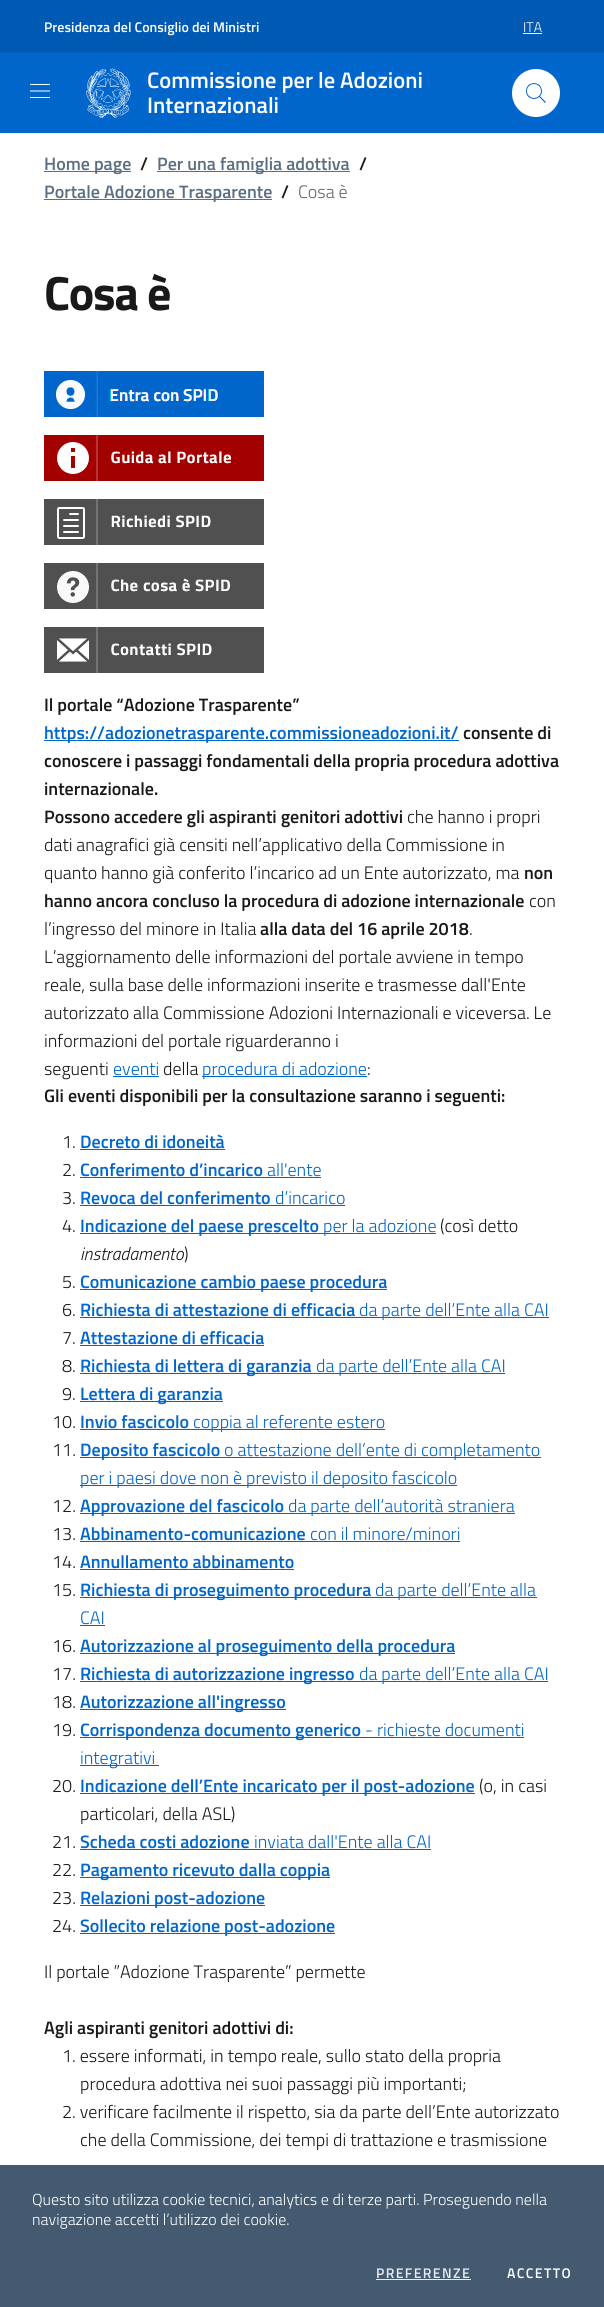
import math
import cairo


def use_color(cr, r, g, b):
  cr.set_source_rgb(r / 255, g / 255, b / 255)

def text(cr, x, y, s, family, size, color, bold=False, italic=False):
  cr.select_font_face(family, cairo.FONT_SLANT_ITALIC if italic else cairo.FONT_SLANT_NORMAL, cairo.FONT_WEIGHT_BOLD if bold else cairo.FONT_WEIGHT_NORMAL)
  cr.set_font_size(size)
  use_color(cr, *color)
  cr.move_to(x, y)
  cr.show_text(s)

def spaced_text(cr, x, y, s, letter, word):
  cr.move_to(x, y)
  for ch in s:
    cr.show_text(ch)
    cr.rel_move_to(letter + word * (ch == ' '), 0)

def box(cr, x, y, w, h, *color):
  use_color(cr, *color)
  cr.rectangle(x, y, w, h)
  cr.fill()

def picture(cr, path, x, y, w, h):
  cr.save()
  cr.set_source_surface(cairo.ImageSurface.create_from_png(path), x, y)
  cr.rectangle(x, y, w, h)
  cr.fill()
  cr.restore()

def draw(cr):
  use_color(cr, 255, 255, 255)
  cr.paint()
  box(cr, 0, 0, 604, 53, 0, 89, 179)
  box(cr, 523, 33, 19, 1, 255, 255, 255)
  box(cr, 0, 53, 604, 80, 0, 102, 204)
  picture(cr, "img_01.png", 30, 84, 20, 14)
  picture(cr, "img_02.png", 86, 68, 45, 50)
  use_color(cr, 255, 255, 255)
  cr.arc(536, 93, 24, 0, 2 * math.pi)
  cr.fill()
  picture(cr, "img_03.png", 526, 83, 20, 20)
  box(cr, 44, 171, 87, 1, 91, 111, 130)
  box(cr, 157, 171, 193, 1, 91, 111, 130)
  box(cr, 44, 199, 228, 1, 91, 111, 130)
  picture(cr, "img_04.png", 44, 371, 220, 46)
  picture(cr, "img_05.png", 44, 435, 220, 46)
  picture(cr, "img_06.png", 44, 499, 220, 46)
  picture(cr, "img_07.png", 44, 563, 220, 46)
  picture(cr, "img_08.png", 44, 627, 220, 46)
  box(cr, 44, 740, 415, 1, 0, 102, 204)
  box(cr, 113, 1076, 46, 1, 0, 102, 204)
  box(cr, 202, 1076, 165, 1, 0, 102, 204)
  box(cr, 80, 1149, 145, 1, 0, 102, 204)
  box(cr, 80, 1177, 241, 1, 0, 102, 204)
  box(cr, 80, 1205, 265, 1, 0, 102, 204)
  box(cr, 80, 1233, 356, 1, 0, 102, 204)
  box(cr, 80, 1289, 307, 1, 0, 102, 204)
  box(cr, 80, 1317, 469, 1, 0, 102, 204)
  box(cr, 80, 1345, 184, 1, 0, 102, 204)
  box(cr, 80, 1373, 425, 1, 0, 102, 204)
  box(cr, 80, 1401, 143, 1, 0, 102, 204)
  box(cr, 80, 1429, 305, 1, 0, 102, 204)
  box(cr, 80, 1457, 461, 1, 0, 102, 204)
  box(cr, 80, 1485, 377, 1, 0, 102, 204)
  box(cr, 80, 1513, 435, 1, 0, 102, 204)
  box(cr, 80, 1541, 380, 1, 0, 102, 204)
  box(cr, 80, 1569, 214, 1, 0, 102, 204)
  box(cr, 80, 1597, 457, 1, 0, 102, 204)
  box(cr, 80, 1625, 25, 1, 0, 102, 204)
  box(cr, 80, 1653, 375, 1, 0, 102, 204)
  box(cr, 80, 1681, 468, 1, 0, 102, 204)
  box(cr, 80, 1709, 206, 1, 0, 102, 204)
  box(cr, 80, 1737, 444, 1, 0, 102, 204)
  box(cr, 80, 1765, 79, 1, 0, 102, 204)
  box(cr, 80, 1793, 395, 1, 0, 102, 204)
  box(cr, 80, 1849, 351, 1, 0, 102, 204)
  box(cr, 80, 1877, 250, 1, 0, 102, 204)
  box(cr, 80, 1905, 185, 1, 0, 102, 204)
  box(cr, 80, 1933, 255, 1, 0, 102, 204)
  box(cr, 0, 2165, 604, 142, 67, 90, 112)
  box(cr, 376, 2279, 95, 1, 230, 236, 242)
  text(cr, 44, 32, "Presidenza del Consiglio dei Ministri", "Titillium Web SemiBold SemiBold", 14, (255, 255, 255))
  text(cr, 523, 32, "ITA", "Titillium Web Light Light", 14, (255, 255, 255))
  text(cr, 147, 88, "Commissione per le Adozioni", "Titillium Web SemiBold SemiBold", 22.5, (255, 255, 255))
  text(cr, 147, 113, "Internazionali", "Titillium Web SemiBold SemiBold", 22.5, (255, 255, 255))
  text(cr, 44, 170, "Home page", "Titillium Web SemiBold SemiBold", 18, (91, 111, 130))
  text(cr, 140, 170, "/", "Titillium Web SemiBold SemiBold", 18, (25, 25, 26))
  text(cr, 157, 170, "Per una famiglia adottiva", "Titillium Web SemiBold SemiBold", 18, (91, 111, 130))
  text(cr, 359, 170, "/", "Titillium Web SemiBold SemiBold", 18, (25, 25, 26))
  text(cr, 44, 198, "Portale Adozione Trasparente", "Titillium Web SemiBold SemiBold", 18, (91, 111, 130))
  text(cr, 281, 198, "/", "Titillium Web SemiBold SemiBold", 18, (25, 25, 26))
  text(cr, 298, 198, "Cosa è", "Titillium Web Light Light", 18, (101, 101, 102))
  cr.select_font_face("Titillium Web", cairo.FONT_SLANT_NORMAL, cairo.FONT_WEIGHT_BOLD)
  cr.set_font_size(48)
  use_color(cr, 25, 25, 26)
  spaced_text(cr, 44, 310, "Cosa è", -1.25, 0)
  text(cr, 44, 711, "Il portale “Adozione Trasparente”", "Titillium Web SemiBold SemiBold", 18, (25, 25, 26))
  text(cr, 44, 739, "https://adozionetrasparente.commissioneadozioni.it/", "Titillium Web SemiBold SemiBold", 18, (0, 102, 204))
  text(cr, 463, 739, "consente di", "Titillium Web SemiBold SemiBold", 18, (25, 25, 26))
  text(cr, 44, 767, "conoscere i passaggi fondamentali della propria procedura adottiva", "Titillium Web SemiBold SemiBold", 18, (25, 25, 26))
  text(cr, 44, 795, "internazionale.", "Titillium Web SemiBold SemiBold", 18, (25, 25, 26))
  text(cr, 44, 823, "Possono accedere gli aspiranti genitori adottivi", "Titillium Web SemiBold SemiBold", 18, (25, 25, 26))
  text(cr, 407, 823, "che hanno i propri", "Titillium Web Light Light", 18, (25, 25, 26))
  text(cr, 44, 851, "dati anagrafici già censiti nell’applicativo della Commissione in", "Titillium Web Light Light", 18, (25, 25, 26))
  text(cr, 44, 879, "quanto hanno già conferito l’incarico ad un Ente autorizzato, ma", "Titillium Web Light Light", 18, (25, 25, 26))
  text(cr, 524, 879, "non", "Titillium Web SemiBold SemiBold", 18, (25, 25, 26))
  text(cr, 44, 907, "hanno ancora concluso la procedura di adozione internazionale", "Titillium Web SemiBold SemiBold", 18, (25, 25, 26))
  text(cr, 529, 907, "con", "Titillium Web Light Light", 18, (25, 25, 26))
  text(cr, 44, 935, "l’ingresso del minore in Italia", "Titillium Web Light Light", 18, (25, 25, 26))
  text(cr, 260, 935, "alla data del 16 aprile 2018", "Titillium Web SemiBold SemiBold", 18, (25, 25, 26))
  text(cr, 469, 935, ".", "Titillium Web Light Light", 18, (25, 25, 26))
  text(cr, 44, 963, "L’aggiornamento delle informazioni del portale avviene in tempo", "Titillium Web Light Light", 18, (25, 25, 26))
  text(cr, 44, 991, "reale, sulla base delle informazioni inserite e trasmesse dall'Ente", "Titillium Web Light Light", 18, (25, 25, 26))
  text(cr, 44, 1019, "autorizzato alla Commissione Adozioni Internazionali e viceversa. Le", "Titillium Web Light Light", 18, (25, 25, 26))
  text(cr, 44, 1047, "informazioni del portale riguarderanno i", "Titillium Web Light Light", 18, (25, 25, 26))
  text(cr, 44, 1075, "seguenti", "Titillium Web Light Light", 18, (25, 25, 26))
  text(cr, 113, 1075, "eventi", "Titillium Web Light Light", 18, (0, 102, 204))
  text(cr, 163, 1075, "della", "Titillium Web Light Light", 18, (25, 25, 26))
  text(cr, 202, 1075, "procedura di adozione", "Titillium Web Light Light", 18, (0, 102, 204))
  text(cr, 367, 1075, ":", "Titillium Web Light Light", 18, (25, 25, 26))
  text(cr, 44, 1102, "Gli eventi disponibili per la consultazione saranno i seguenti:", "Titillium Web SemiBold SemiBold", 18, (25, 25, 26))
  text(cr, 62, 1148, "1.", "Titillium Web Light Light", 18, (25, 25, 26))
  text(cr, 80, 1148, "Decreto di idoneità", "Titillium Web SemiBold SemiBold", 18, (0, 102, 204))
  text(cr, 62, 1176, "2.", "Titillium Web Light Light", 18, (25, 25, 26))
  text(cr, 80, 1176, "Conferimento d’incarico", "Titillium Web SemiBold SemiBold", 18, (0, 102, 204))
  text(cr, 267, 1176, "all'ente", "Titillium Web Light Light", 18, (0, 102, 204))
  text(cr, 62, 1204, "3.", "Titillium Web Light Light", 18, (25, 25, 26))
  text(cr, 80, 1204, "Revoca del conferimento", "Titillium Web SemiBold SemiBold", 18, (0, 102, 204))
  text(cr, 275, 1204, "d’incarico", "Titillium Web Light Light", 18, (0, 102, 204))
  text(cr, 62, 1232, "4.", "Titillium Web Light Light", 18, (25, 25, 26))
  text(cr, 80, 1232, "Indicazione del paese prescelto", "Titillium Web SemiBold SemiBold", 18, (0, 102, 204))
  text(cr, 323, 1232, "per la adozione", "Titillium Web Light Light", 18, (0, 102, 204))
  text(cr, 440, 1232, "(così detto", "Titillium Web Light Light", 18, (25, 25, 26))
  text(cr, 80, 1260, "instradamento", "Titillium Web Light Light", 18, (25, 25, 26), italic=True)
  text(cr, 184, 1260, ")", "Titillium Web Light Light", 18, (25, 25, 26))
  text(cr, 62, 1288, "5.", "Titillium Web Light Light", 18, (25, 25, 26))
  text(cr, 80, 1288, "Comunicazione cambio paese procedura", "Titillium Web SemiBold SemiBold", 18, (0, 102, 204))
  text(cr, 62, 1316, "6.", "Titillium Web Light Light", 18, (25, 25, 26))
  text(cr, 80, 1316, "Richiesta di attestazione di efficacia", "Titillium Web SemiBold SemiBold", 18, (0, 102, 204))
  text(cr, 359, 1316, "da parte dell’Ente alla CAI", "Titillium Web Light Light", 18, (0, 102, 204))
  text(cr, 62, 1344, "7.", "Titillium Web Light Light", 18, (25, 25, 26))
  text(cr, 80, 1344, "Attestazione di efficacia", "Titillium Web SemiBold SemiBold", 18, (0, 102, 204))
  text(cr, 62, 1372, "8.", "Titillium Web Light Light", 18, (25, 25, 26))
  text(cr, 80, 1372, "Richiesta di lettera di garanzia", "Titillium Web SemiBold SemiBold", 18, (0, 102, 204))
  text(cr, 316, 1372, "da parte dell’Ente alla CAI", "Titillium Web Light Light", 18, (0, 102, 204))
  text(cr, 62, 1400, "9.", "Titillium Web Light Light", 18, (25, 25, 26))
  text(cr, 80, 1400, "Lettera di garanzia", "Titillium Web SemiBold SemiBold", 18, (0, 102, 204))
  text(cr, 52, 1428, "10.", "Titillium Web Light Light", 18, (25, 25, 26))
  text(cr, 80, 1428, "Invio fascicolo", "Titillium Web SemiBold SemiBold", 18, (0, 102, 204))
  text(cr, 193, 1428, "coppia al referente estero", "Titillium Web Light Light", 18, (0, 102, 204))
  text(cr, 52, 1456, "11.", "Titillium Web Light Light", 18, (25, 25, 26))
  text(cr, 80, 1456, "Deposito fascicolo", "Titillium Web SemiBold SemiBold", 18, (0, 102, 204))
  text(cr, 224, 1456, "o attestazione dell’ente di completamento", "Titillium Web Light Light", 18, (0, 102, 204))
  text(cr, 80, 1484, "per i paesi dove non è previsto il deposito fascicolo", "Titillium Web Light Light", 18, (0, 102, 204))
  text(cr, 52, 1512, "12.", "Titillium Web Light Light", 18, (25, 25, 26))
  text(cr, 80, 1512, "Approvazione del fascicolo", "Titillium Web SemiBold SemiBold", 18, (0, 102, 204))
  text(cr, 288, 1512, "da parte dell’autorità straniera", "Titillium Web Light Light", 18, (0, 102, 204))
  text(cr, 52, 1540, "13.", "Titillium Web Light Light", 18, (25, 25, 26))
  text(cr, 80, 1540, "Abbinamento-comunicazione", "Titillium Web SemiBold SemiBold", 18, (0, 102, 204))
  text(cr, 310, 1540, "con il minore/minori", "Titillium Web Light Light", 18, (0, 102, 204))
  text(cr, 52, 1568, "14.", "Titillium Web Light Light", 18, (25, 25, 26))
  text(cr, 80, 1568, "Annullamento abbinamento", "Titillium Web SemiBold SemiBold", 18, (0, 102, 204))
  text(cr, 52, 1596, "15.", "Titillium Web Light Light", 18, (25, 25, 26))
  text(cr, 80, 1596, "Richiesta di proseguimento procedura", "Titillium Web SemiBold SemiBold", 18, (0, 102, 204))
  text(cr, 375, 1596, "da parte dell’Ente alla", "Titillium Web Light Light", 18, (0, 102, 204))
  text(cr, 80, 1624, "CAI", "Titillium Web Light Light", 18, (0, 102, 204))
  text(cr, 52, 1652, "16.", "Titillium Web Light Light", 18, (25, 25, 26))
  text(cr, 80, 1652, "Autorizzazione al proseguimento della procedura", "Titillium Web SemiBold SemiBold", 18, (0, 102, 204))
  text(cr, 52, 1680, "17.", "Titillium Web Light Light", 18, (25, 25, 26))
  text(cr, 80, 1680, "Richiesta di autorizzazione ingresso", "Titillium Web SemiBold SemiBold", 18, (0, 102, 204))
  text(cr, 359, 1680, "da parte dell’Ente alla CAI", "Titillium Web Light Light", 18, (0, 102, 204))
  text(cr, 52, 1708, "18.", "Titillium Web Light Light", 18, (25, 25, 26))
  text(cr, 80, 1708, "Autorizzazione all'ingresso", "Titillium Web SemiBold SemiBold", 18, (0, 102, 204))
  text(cr, 52, 1736, "19.", "Titillium Web Light Light", 18, (25, 25, 26))
  text(cr, 80, 1736, "Corrispondenza documento generico", "Titillium Web SemiBold SemiBold", 18, (0, 102, 204))
  text(cr, 365, 1736, "- richieste documenti", "Titillium Web Light Light", 18, (0, 102, 204))
  text(cr, 80, 1764, "integrativi", "Titillium Web Light Light", 18, (0, 102, 204))
  text(cr, 52, 1792, "20.", "Titillium Web Light Light", 18, (25, 25, 26))
  text(cr, 80, 1792, "Indicazione dell’Ente incaricato per il post-adozione", "Titillium Web SemiBold SemiBold", 18, (0, 102, 204))
  text(cr, 479, 1792, "(o, in casi", "Titillium Web Light Light", 18, (25, 25, 26))
  text(cr, 80, 1820, "particolari, della ASL)", "Titillium Web Light Light", 18, (25, 25, 26))
  text(cr, 52, 1848, "21.", "Titillium Web Light Light", 18, (25, 25, 26))
  text(cr, 80, 1848, "Scheda costi adozione", "Titillium Web SemiBold SemiBold", 18, (0, 102, 204))
  text(cr, 254, 1848, "inviata dall'Ente alla CAI", "Titillium Web Light Light", 18, (0, 102, 204))
  text(cr, 52, 1876, "22.", "Titillium Web Light Light", 18, (25, 25, 26))
  text(cr, 80, 1876, "Pagamento ricevuto dalla coppia", "Titillium Web SemiBold SemiBold", 18, (0, 102, 204))
  text(cr, 52, 1904, "23.", "Titillium Web Light Light", 18, (25, 25, 26))
  text(cr, 80, 1904, "Relazioni post-adozione", "Titillium Web SemiBold SemiBold", 18, (0, 102, 204))
  text(cr, 52, 1932, "24.", "Titillium Web Light Light", 18, (25, 25, 26))
  text(cr, 80, 1932, "Sollecito relazione post-adozione", "Titillium Web SemiBold SemiBold", 18, (0, 102, 204))
  text(cr, 44, 1978, "Il portale ”Adozione Trasparente” permette", "Titillium Web Light Light", 18, (25, 25, 26))
  text(cr, 44, 2034, "Agli aspiranti genitori adottivi di:", "Titillium Web SemiBold SemiBold", 18, (25, 25, 26))
  text(cr, 62, 2062, "1. essere informati, in tempo reale, sullo stato della propria", "Titillium Web Light Light", 18, (25, 25, 26))
  text(cr, 80, 2090, "procedura adottiva nei suoi passaggi più importanti;", "Titillium Web Light Light", 18, (25, 25, 26))
  text(cr, 62, 2118, "2. verificare facilmente il rispetto, sia da parte dell’Ente autorizzato", "Titillium Web Light Light", 18, (25, 25, 26))
  text(cr, 80, 2146, "che della Commissione, dei tempi di trattazione e trasmissione", "Titillium Web Light Light", 18, (25, 25, 26))
  text(cr, 32, 2205, "Questo sito utilizza cookie tecnici, analytics e di terze parti. Proseguendo nella", "Titillium Web Light Light", 16, (255, 255, 255))
  text(cr, 32, 2225, "navigazione accetti l’utilizzo dei cookie.", "Titillium Web Light Light", 16, (255, 255, 255))
  cr.select_font_face("Titillium Web SemiBold SemiBold")
  cr.set_font_size(14)
  use_color(cr, 230, 236, 242)
  spaced_text(cr, 376, 2278, "PREFERENZE", 1.4, 0)
  use_color(cr, 255, 255, 255)
  spaced_text(cr, 507, 2278, "ACCETTO", 1.4, 0)


surface = cairo.ImageSurface(cairo.FORMAT_RGB24, 604, 2307)
cr = cairo.Context(surface)
options = cairo.FontOptions()
options.set_hint_metrics(cairo.HINT_METRICS_OFF)
options.set_hint_style(cairo.HINT_STYLE_NONE)
cr.set_font_options(options)
cr.set_miter_limit(4)
draw(cr)
surface.write_to_png("out.png")
